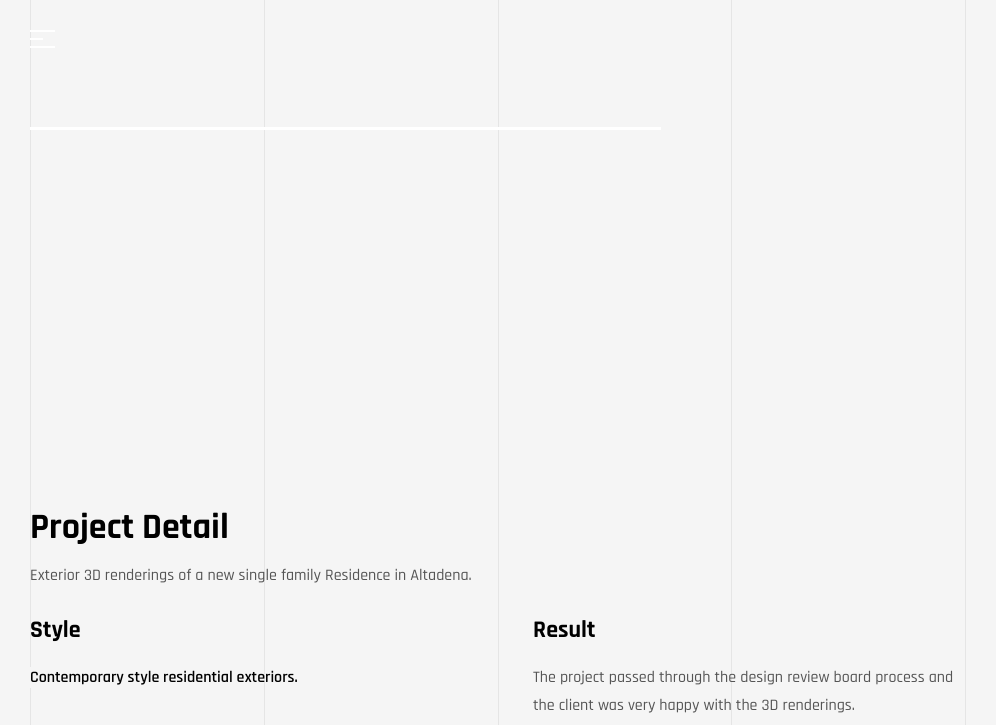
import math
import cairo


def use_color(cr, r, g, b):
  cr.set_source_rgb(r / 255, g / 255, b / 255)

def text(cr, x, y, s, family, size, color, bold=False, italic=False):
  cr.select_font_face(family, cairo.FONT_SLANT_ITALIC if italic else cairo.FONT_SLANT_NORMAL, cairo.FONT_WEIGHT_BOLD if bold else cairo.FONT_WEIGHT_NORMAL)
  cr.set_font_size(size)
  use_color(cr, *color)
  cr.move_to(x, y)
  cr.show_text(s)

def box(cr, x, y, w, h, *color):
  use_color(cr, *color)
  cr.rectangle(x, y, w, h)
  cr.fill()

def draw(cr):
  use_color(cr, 245, 245, 245)
  cr.paint()
  box(cr, 965, 0, 1, 725, 229, 229, 229)
  box(cr, 30, 0, 1, 725, 229, 229, 229)
  box(cr, 264, 0, 1, 725, 229, 229, 229)
  box(cr, 498, 0, 1, 725, 229, 229, 229)
  box(cr, 731, 0, 1, 725, 229, 229, 229)
  box(cr, 30, 30, 25, 2, 255, 255, 255)
  box(cr, 30, 38, 13, 2, 255, 255, 255)
  box(cr, 30, 46, 25, 2, 255, 255, 255)
  box(cr, 30, 127, 631, 3, 255, 255, 255)
  box(cr, 30, 667, 1, 21, 245, 245, 245)
  text(cr, 30, 538, "Project Detail", "Rajdhani", 36, (0, 0, 0), bold=True)
  text(cr, 30, 580, "Exterior 3D renderings of a new single family Residence in Altadena.", "Rajdhani Medium", 16, (85, 85, 85))
  text(cr, 30, 637, "Style", "Rajdhani", 24, (0, 0, 0), bold=True)
  text(cr, 30, 682, "Contemporary style residential exteriors.", "Rajdhani SemiBold", 16, (0, 0, 0))
  text(cr, 533, 637, "Result", "Rajdhani", 24, (0, 0, 0), bold=True)
  text(cr, 533, 682, "The project passed through the design review board process and", "Rajdhani Medium", 16, (85, 85, 85))
  text(cr, 533, 710, "the client was very happy with the 3D renderings.", "Rajdhani Medium", 16, (85, 85, 85))


surface = cairo.ImageSurface(cairo.FORMAT_RGB24, 996, 725)
cr = cairo.Context(surface)
options = cairo.FontOptions()
options.set_hint_metrics(cairo.HINT_METRICS_OFF)
options.set_hint_style(cairo.HINT_STYLE_NONE)
cr.set_font_options(options)
cr.set_miter_limit(4)
draw(cr)
surface.write_to_png("out.png")
